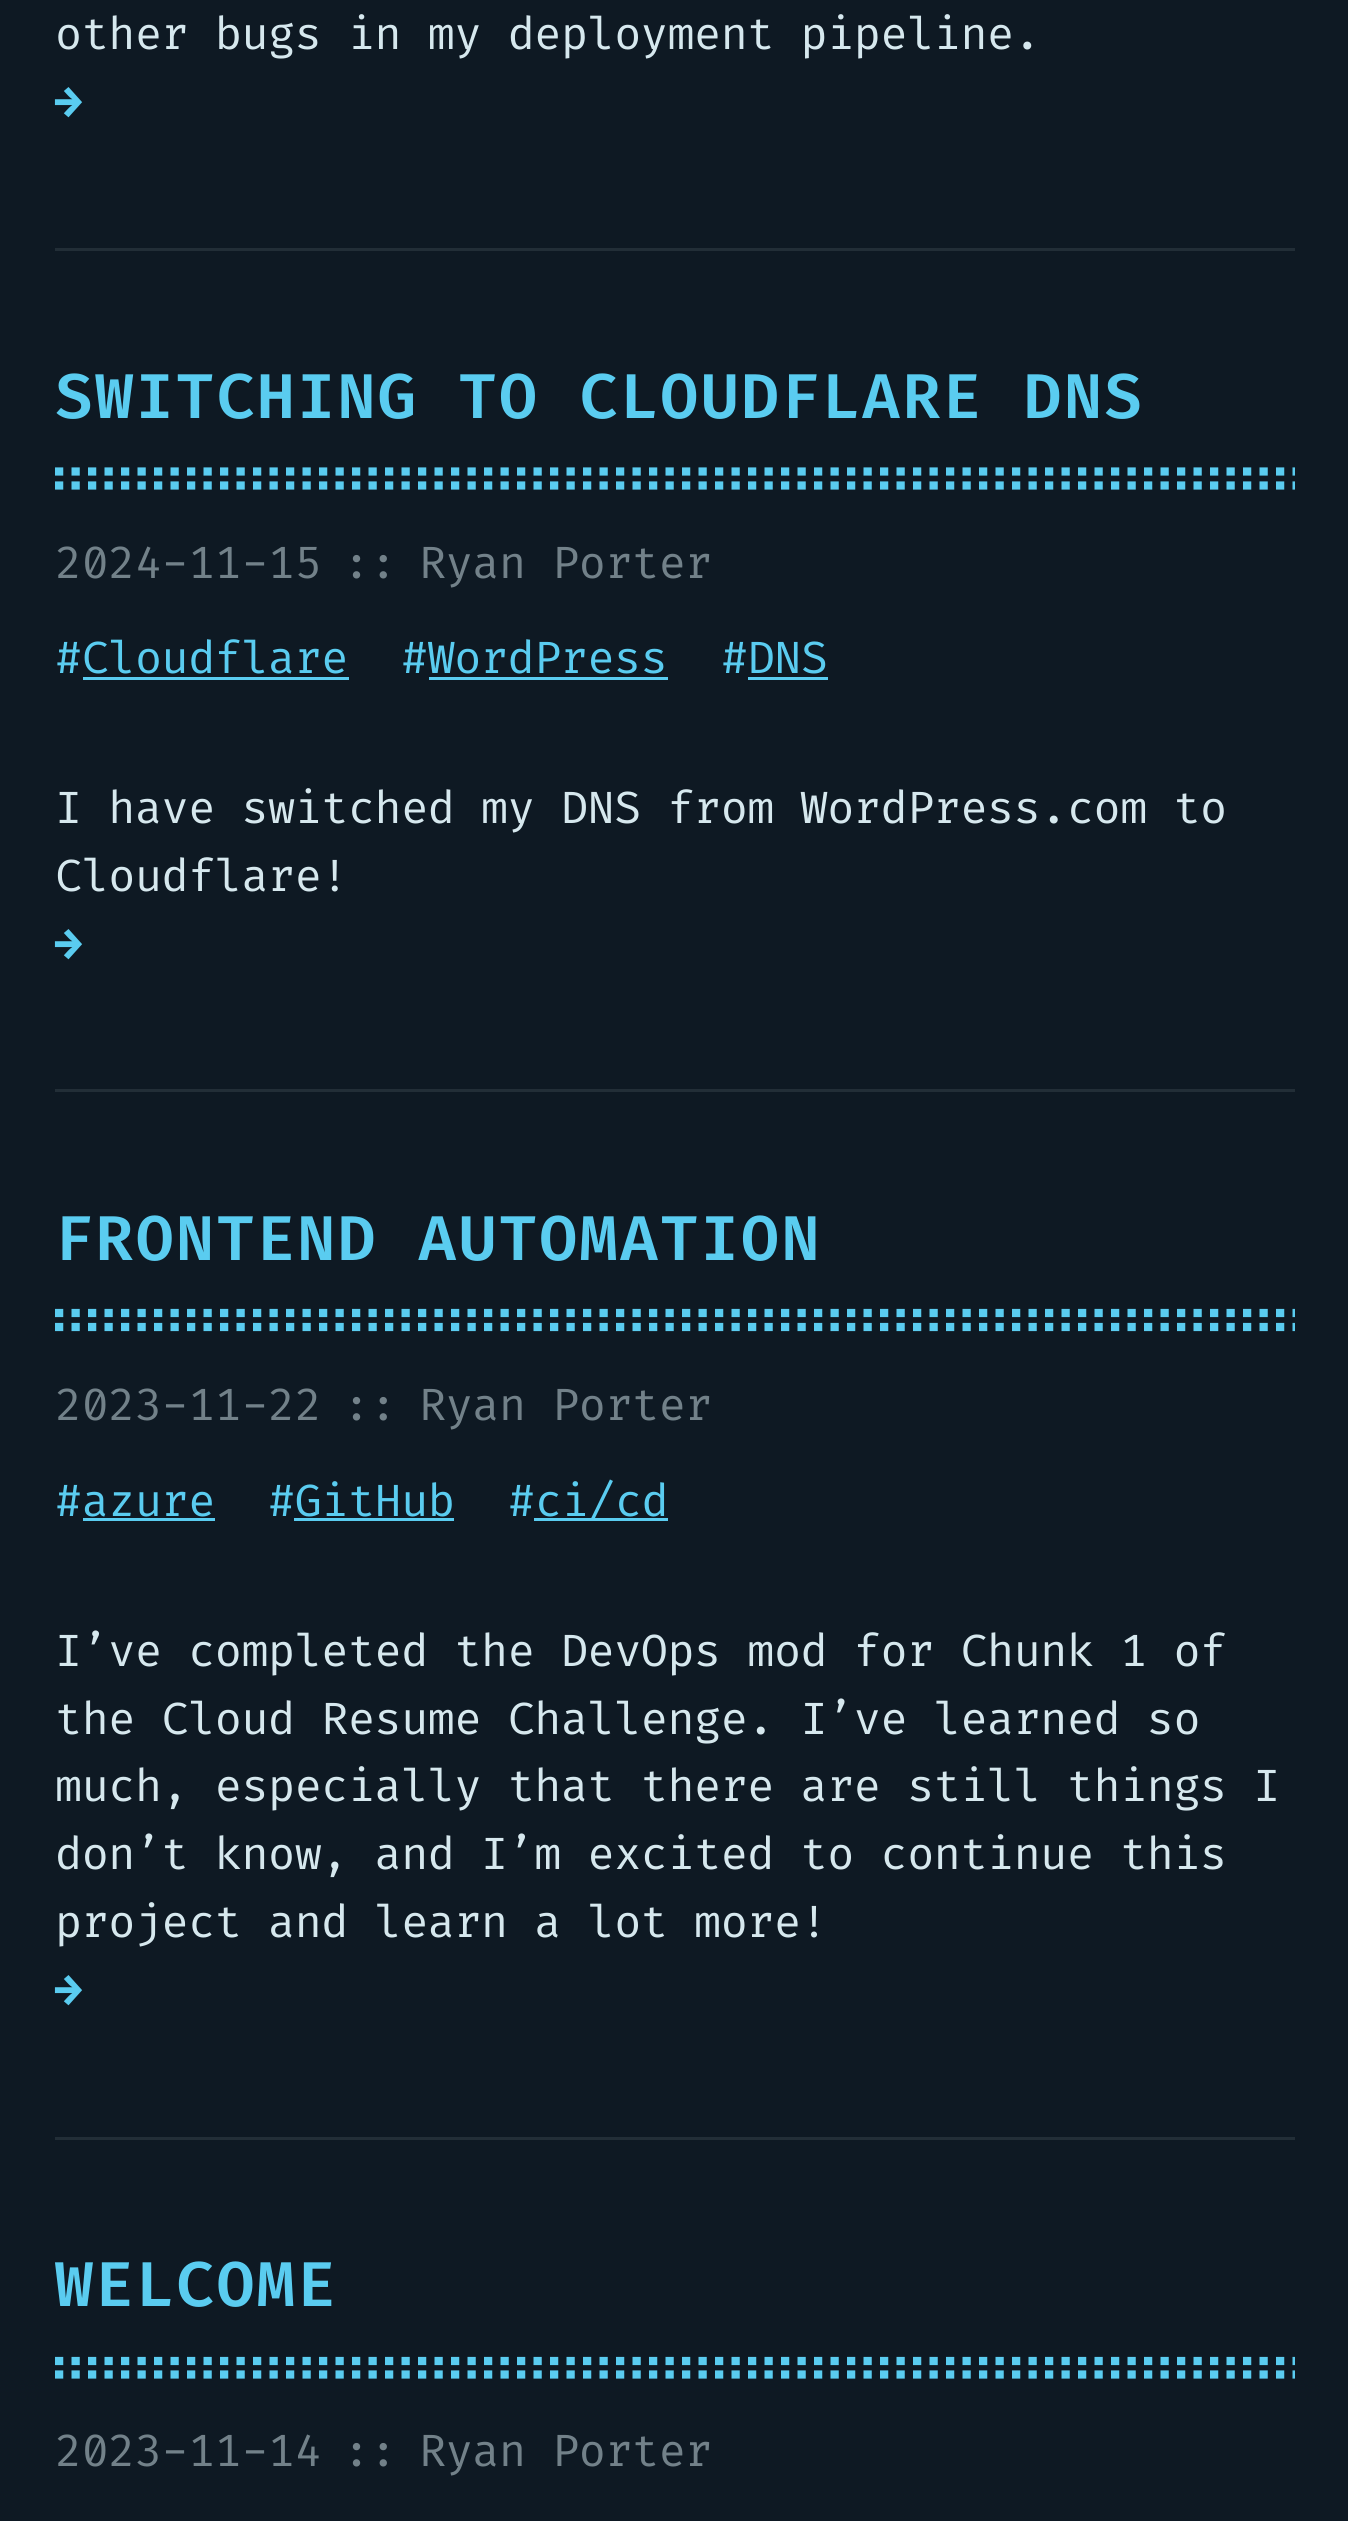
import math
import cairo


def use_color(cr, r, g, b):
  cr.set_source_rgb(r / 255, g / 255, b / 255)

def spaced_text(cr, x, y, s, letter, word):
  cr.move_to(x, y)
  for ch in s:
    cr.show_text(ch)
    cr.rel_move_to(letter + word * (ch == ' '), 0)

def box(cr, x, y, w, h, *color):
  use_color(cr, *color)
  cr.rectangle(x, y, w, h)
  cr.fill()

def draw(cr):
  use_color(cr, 14, 25, 35)
  cr.paint()
  box(cr, 55, 248, 1240, 3, 34, 46, 55)
  box(cr, 55, 1089, 1240, 3, 34, 46, 55)
  cr.new_path()
  cr.move_to(55, 485.5)
  cr.line_to(1295, 485.5)
  use_color(cr, 90, 204, 240)
  cr.set_line_width(8.2)
  cr.set_dash([8.25, 8.25])
  cr.stroke()
  cr.new_path()
  cr.move_to(55, 471.5)
  cr.line_to(1295, 471.5)
  cr.stroke()
  box(cr, 83, 677, 266, 3, 90, 204, 240)
  box(cr, 429, 677, 239, 3, 90, 204, 240)
  box(cr, 748, 677, 80, 3, 90, 204, 240)
  box(cr, 55, 2137, 1240, 3, 34, 46, 55)
  cr.new_path()
  cr.move_to(55, 1327)
  cr.line_to(1295, 1327)
  use_color(cr, 90, 204, 240)
  cr.stroke()
  cr.new_path()
  cr.move_to(55, 1313)
  cr.line_to(1295, 1313)
  cr.stroke()
  box(cr, 534, 1518, 134, 3, 90, 204, 240)
  box(cr, 83, 1518, 132, 3, 90, 204, 240)
  box(cr, 294, 1518, 160, 3, 90, 204, 240)
  cr.new_path()
  cr.move_to(55, 2374.5)
  cr.line_to(1295, 2374.5)
  cr.stroke()
  cr.new_path()
  cr.move_to(55, 2361)
  cr.line_to(1295, 2361)
  cr.stroke()
  cr.select_font_face("Fira Code")
  cr.set_font_size(44)
  use_color(cr, 214, 232, 238)
  spaced_text(cr, 55, 49, "other bugs in my deployment pipeline.", -0.45, 0)
  cr.select_font_face("Fira Code", cairo.FONT_SLANT_NORMAL, cairo.FONT_WEIGHT_BOLD)
  use_color(cr, 90, 204, 240)
  spaced_text(cr, 55, 117, "→", -0.45, 0)
  cr.select_font_face("Fira Code SemiBold")
  cr.set_font_size(61.6)
  spaced_text(cr, 55, 418, "SWITCHING TO CLOUDFLARE DNS", 2.45, 0)
  cr.select_font_face("Fira Code")
  cr.set_font_size(44)
  use_color(cr, 114, 129, 137)
  spaced_text(cr, 55, 578, "2024-11-15", -0.45, 0)
  spaced_text(cr, 343, 578, "::", -0.45, 0)
  spaced_text(cr, 419, 578, "Ryan Porter", -0.45, 0)
  use_color(cr, 90, 204, 240)
  spaced_text(cr, 55, 673, "#Cloudflare", -0.45, 0)
  spaced_text(cr, 401, 673, "#WordPress", -0.45, 0)
  spaced_text(cr, 721, 673, "#DNS", -0.45, 0)
  use_color(cr, 214, 232, 238)
  spaced_text(cr, 55, 823, "I have switched my DNS from WordPress.com to", -0.45, 0)
  spaced_text(cr, 55, 891, "Cloudflare!", -0.45, 0)
  cr.select_font_face("Fira Code", cairo.FONT_SLANT_NORMAL, cairo.FONT_WEIGHT_BOLD)
  use_color(cr, 90, 204, 240)
  spaced_text(cr, 55, 959, "→", -0.45, 0)
  cr.select_font_face("Fira Code SemiBold")
  cr.set_font_size(61.6)
  spaced_text(cr, 55, 1260, "FRONTEND AUTOMATION", 2.45, 0)
  cr.select_font_face("Fira Code")
  cr.set_font_size(44)
  use_color(cr, 114, 129, 137)
  spaced_text(cr, 55, 1420, "2023-11-22", -0.45, 0)
  spaced_text(cr, 343, 1420, "::", -0.45, 0)
  spaced_text(cr, 419, 1420, "Ryan Porter", -0.45, 0)
  use_color(cr, 90, 204, 240)
  spaced_text(cr, 55, 1516, "#azure", -0.45, 0)
  spaced_text(cr, 268, 1516, "#GitHub", -0.45, 0)
  spaced_text(cr, 508, 1516, "#", -0.45, 0)
  spaced_text(cr, 535, 1516, "ci/cd", -0.45, 0)
  use_color(cr, 214, 232, 238)
  spaced_text(cr, 55, 1666, "I’ve completed the DevOps mod for Chunk 1 of", -0.45, 0)
  spaced_text(cr, 55, 1734, "the Cloud Resume Challenge. I’ve learned so", -0.45, 0)
  spaced_text(cr, 55, 1801, "much, especially that there are still things I", -0.45, 0)
  spaced_text(cr, 55, 1869, "don’t know, and I’m excited to continue this", -0.45, 0)
  spaced_text(cr, 55, 1937, "project and learn a lot more!", -0.45, 0)
  cr.select_font_face("Fira Code", cairo.FONT_SLANT_NORMAL, cairo.FONT_WEIGHT_BOLD)
  use_color(cr, 90, 204, 240)
  spaced_text(cr, 55, 2005, "→", -0.45, 0)
  cr.select_font_face("Fira Code SemiBold")
  cr.set_font_size(61.6)
  spaced_text(cr, 55, 2306, "WELCOME", 2.45, 0)
  cr.select_font_face("Fira Code")
  cr.set_font_size(44)
  use_color(cr, 114, 129, 137)
  spaced_text(cr, 55, 2466, "2023-11-14", -0.45, 0)
  spaced_text(cr, 343, 2466, "::", -0.45, 0)
  spaced_text(cr, 419, 2466, "Ryan Porter", -0.45, 0)


surface = cairo.ImageSurface(cairo.FORMAT_RGB24, 1348, 2521)
cr = cairo.Context(surface)
options = cairo.FontOptions()
options.set_hint_metrics(cairo.HINT_METRICS_OFF)
options.set_hint_style(cairo.HINT_STYLE_NONE)
cr.set_font_options(options)
cr.set_miter_limit(4)
draw(cr)
surface.write_to_png("out.png")
